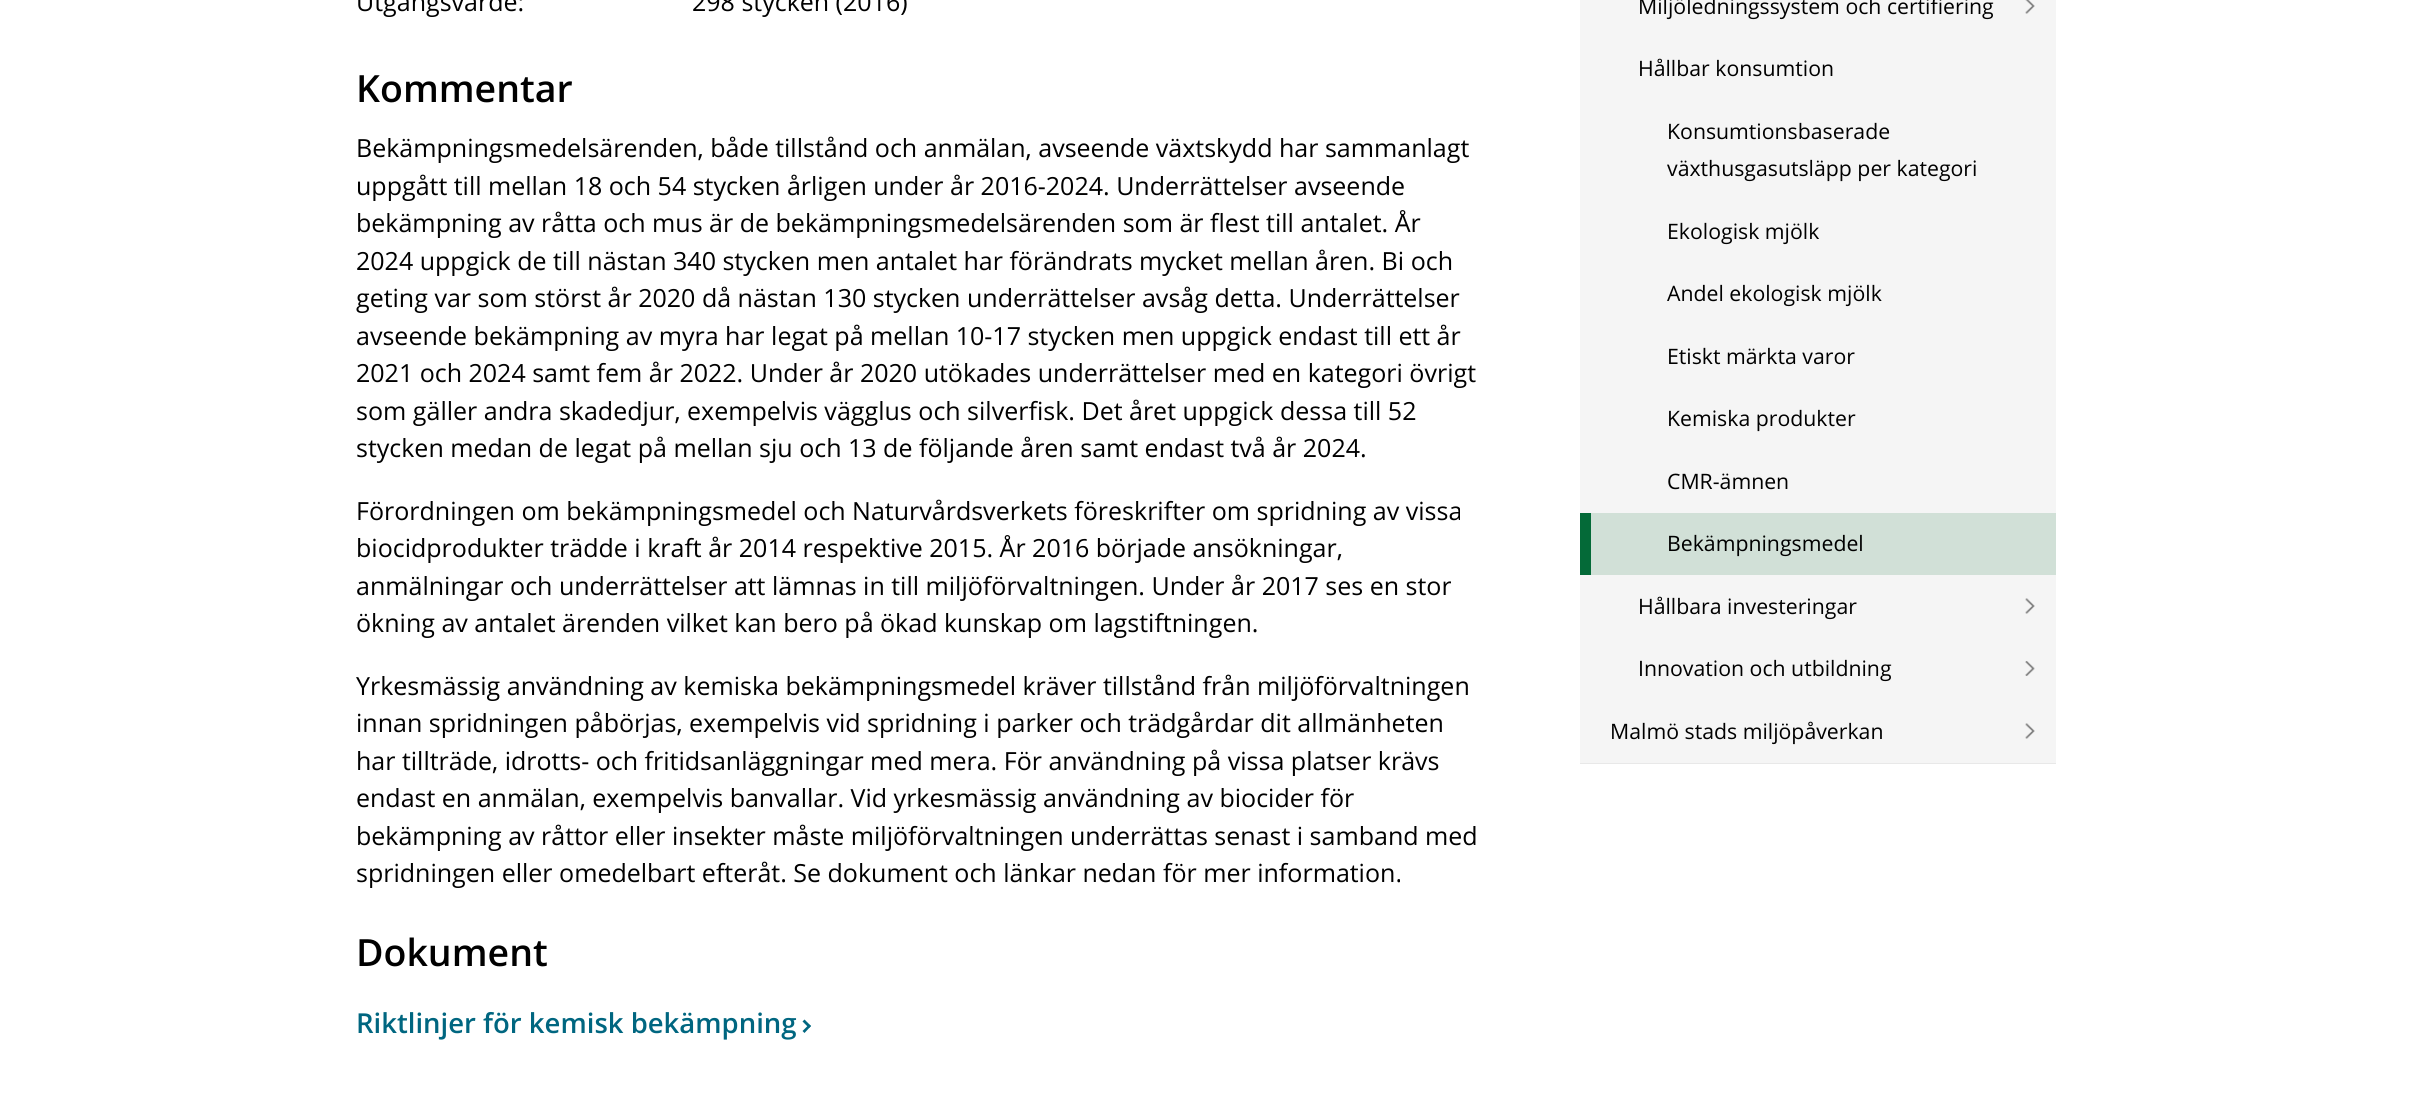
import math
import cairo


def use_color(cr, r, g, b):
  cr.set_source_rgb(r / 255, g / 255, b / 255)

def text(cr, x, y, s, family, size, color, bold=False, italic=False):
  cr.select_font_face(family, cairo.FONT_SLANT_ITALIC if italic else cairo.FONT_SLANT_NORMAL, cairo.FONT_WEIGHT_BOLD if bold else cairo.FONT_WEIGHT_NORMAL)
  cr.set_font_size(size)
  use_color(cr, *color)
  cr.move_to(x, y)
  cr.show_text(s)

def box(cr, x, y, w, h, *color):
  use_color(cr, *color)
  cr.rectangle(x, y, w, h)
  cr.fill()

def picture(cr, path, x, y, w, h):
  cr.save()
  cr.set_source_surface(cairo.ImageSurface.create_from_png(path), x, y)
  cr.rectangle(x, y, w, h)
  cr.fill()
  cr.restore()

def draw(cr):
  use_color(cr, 255, 255, 255)
  cr.paint()
  use_color(cr, 0, 102, 128)
  cr.new_path()
  cr.move_to(802.5, 1021.5)
  cr.line_to(804.5, 1019.5)
  cr.line_to(811, 1026)
  cr.line_to(809, 1028)
  cr.close_path()
  cr.fill()
  cr.new_path()
  cr.move_to(802.5, 1031)
  cr.line_to(809, 1024.5)
  cr.line_to(811, 1026)
  cr.line_to(804.5, 1033)
  cr.close_path()
  cr.fill()
  box(cr, 1580, 0, 476, 763, 245, 245, 245)
  box(cr, 1580, 763, 476, 1, 232, 232, 232)
  picture(cr, "img_01.png", 2025, 0, 10, 14)
  box(cr, 1591, 513, 465, 62, 209, 224, 215)
  box(cr, 1580, 513, 11, 62, 4, 106, 56)
  picture(cr, "img_02.png", 2025, 598, 10, 16)
  picture(cr, "img_03.png", 2025, 661, 10, 15)
  picture(cr, "img_02.png", 2025, 723, 10, 16)
  text(cr, 356, 11, "Utgångsvärde:", "Open Sans", 25, (0, 0, 0))
  text(cr, 692, 11, "298 stycken (2016)", "Open Sans", 25, (0, 0, 0))
  text(cr, 356, 102, "Kommentar", "Open Sans SemiBold", 37.5, (0, 0, 0))
  text(cr, 356, 157, "Bekämpningsmedelsärenden, både tillstånd och anmälan, avseende växtskydd har sammanlagt", "Open Sans", 25, (0, 0, 0))
  text(cr, 356, 195, "uppgått till mellan 18 och 54 stycken årligen under år 2016-2024. Underrättelser avseende", "Open Sans", 25, (0, 0, 0))
  text(cr, 356, 232, "bekämpning av råtta och mus är de bekämpningsmedelsärenden som är flest till antalet. År", "Open Sans", 25, (0, 0, 0))
  text(cr, 356, 270, "2024 uppgick de till nästan 340 stycken men antalet har förändrats mycket mellan åren. Bi och", "Open Sans", 25, (0, 0, 0))
  text(cr, 356, 307, "geting var som störst år 2020 då nästan 130 stycken underrättelser avsåg detta. Underrättelser", "Open Sans", 25, (0, 0, 0))
  text(cr, 356, 345, "avseende bekämpning av myra har legat på mellan 10-17 stycken men uppgick endast till ett år", "Open Sans", 25, (0, 0, 0))
  text(cr, 356, 382, "2021 och 2024 samt fem år 2022. Under år 2020 utökades underrättelser med en kategori övrigt", "Open Sans", 25, (0, 0, 0))
  text(cr, 356, 420, "som gäller andra skadedjur, exempelvis vägglus och silverfisk. Det året uppgick dessa till 52", "Open Sans", 25, (0, 0, 0))
  text(cr, 356, 457, "stycken medan de legat på mellan sju och 13 de följande åren samt endast två år 2024.", "Open Sans", 25, (0, 0, 0))
  text(cr, 356, 520, "Förordningen om bekämpningsmedel och Naturvårdsverkets föreskrifter om spridning av vissa", "Open Sans", 25, (0, 0, 0))
  text(cr, 356, 557, "biocidprodukter trädde i kraft år 2014 respektive 2015. År 2016 började ansökningar,", "Open Sans", 25, (0, 0, 0))
  text(cr, 356, 595, "anmälningar och underrättelser att lämnas in till miljöförvaltningen. Under år 2017 ses en stor", "Open Sans", 25, (0, 0, 0))
  text(cr, 356, 632, "ökning av antalet ärenden vilket kan bero på ökad kunskap om lagstiftningen.", "Open Sans", 25, (0, 0, 0))
  text(cr, 356, 695, "Yrkesmässig användning av kemiska bekämpningsmedel kräver tillstånd från miljöförvaltningen", "Open Sans", 25, (0, 0, 0))
  text(cr, 356, 732, "innan spridningen påbörjas, exempelvis vid spridning i parker och trädgårdar dit allmänheten", "Open Sans", 25, (0, 0, 0))
  text(cr, 356, 770, "har tillträde, idrotts- och fritidsanläggningar med mera. För användning på vissa platser krävs", "Open Sans", 25, (0, 0, 0))
  text(cr, 356, 807, "endast en anmälan, exempelvis banvallar. Vid yrkesmässig användning av biocider för", "Open Sans", 25, (0, 0, 0))
  text(cr, 356, 845, "bekämpning av råttor eller insekter måste miljöförvaltningen underrättas senast i samband med", "Open Sans", 25, (0, 0, 0))
  text(cr, 356, 882, "spridningen eller omedelbart efteråt. Se dokument och länkar nedan för mer information.", "Open Sans", 25, (0, 0, 0))
  text(cr, 356, 966, "Dokument", "Open Sans SemiBold", 37.5, (0, 0, 0))
  text(cr, 356, 1033, "Riktlinjer för kemisk bekämpning", "Open Sans SemiBold", 27.5, (0, 102, 128))
  text(cr, 1638, 14, "Miljöledningssystem och certifiering", "Open Sans", 21.25, (0, 0, 0))
  text(cr, 1638, 76, "Hållbar konsumtion", "Open Sans", 21.25, (0, 0, 0))
  text(cr, 1667, 139, "Konsumtionsbaserade", "Open Sans", 21.25, (0, 0, 0))
  text(cr, 1667, 176, "växthusgasutsläpp per kategori", "Open Sans", 21.25, (0, 0, 0))
  text(cr, 1667, 239, "Ekologisk mjölk", "Open Sans", 21.25, (0, 0, 0))
  text(cr, 1667, 301, "Andel ekologisk mjölk", "Open Sans", 21.25, (0, 0, 0))
  text(cr, 1667, 364, "Etiskt märkta varor", "Open Sans", 21.25, (0, 0, 0))
  text(cr, 1667, 426, "Kemiska produkter", "Open Sans", 21.25, (0, 0, 0))
  text(cr, 1667, 489, "CMR-ämnen", "Open Sans", 21.25, (0, 0, 0))
  text(cr, 1667, 551, "Bekämpningsmedel", "Open Sans", 21.25, (0, 0, 0))
  text(cr, 1638, 614, "Hållbara investeringar", "Open Sans", 21.25, (0, 0, 0))
  text(cr, 1638, 676, "Innovation och utbildning", "Open Sans", 21.25, (0, 0, 0))
  text(cr, 1610, 739, "Malmö stads miljöpåverkan", "Open Sans", 21.25, (0, 0, 0))


surface = cairo.ImageSurface(cairo.FORMAT_RGB24, 2411, 1109)
cr = cairo.Context(surface)
options = cairo.FontOptions()
options.set_hint_metrics(cairo.HINT_METRICS_OFF)
options.set_hint_style(cairo.HINT_STYLE_NONE)
cr.set_font_options(options)
cr.set_miter_limit(4)
draw(cr)
surface.write_to_png("out.png")
